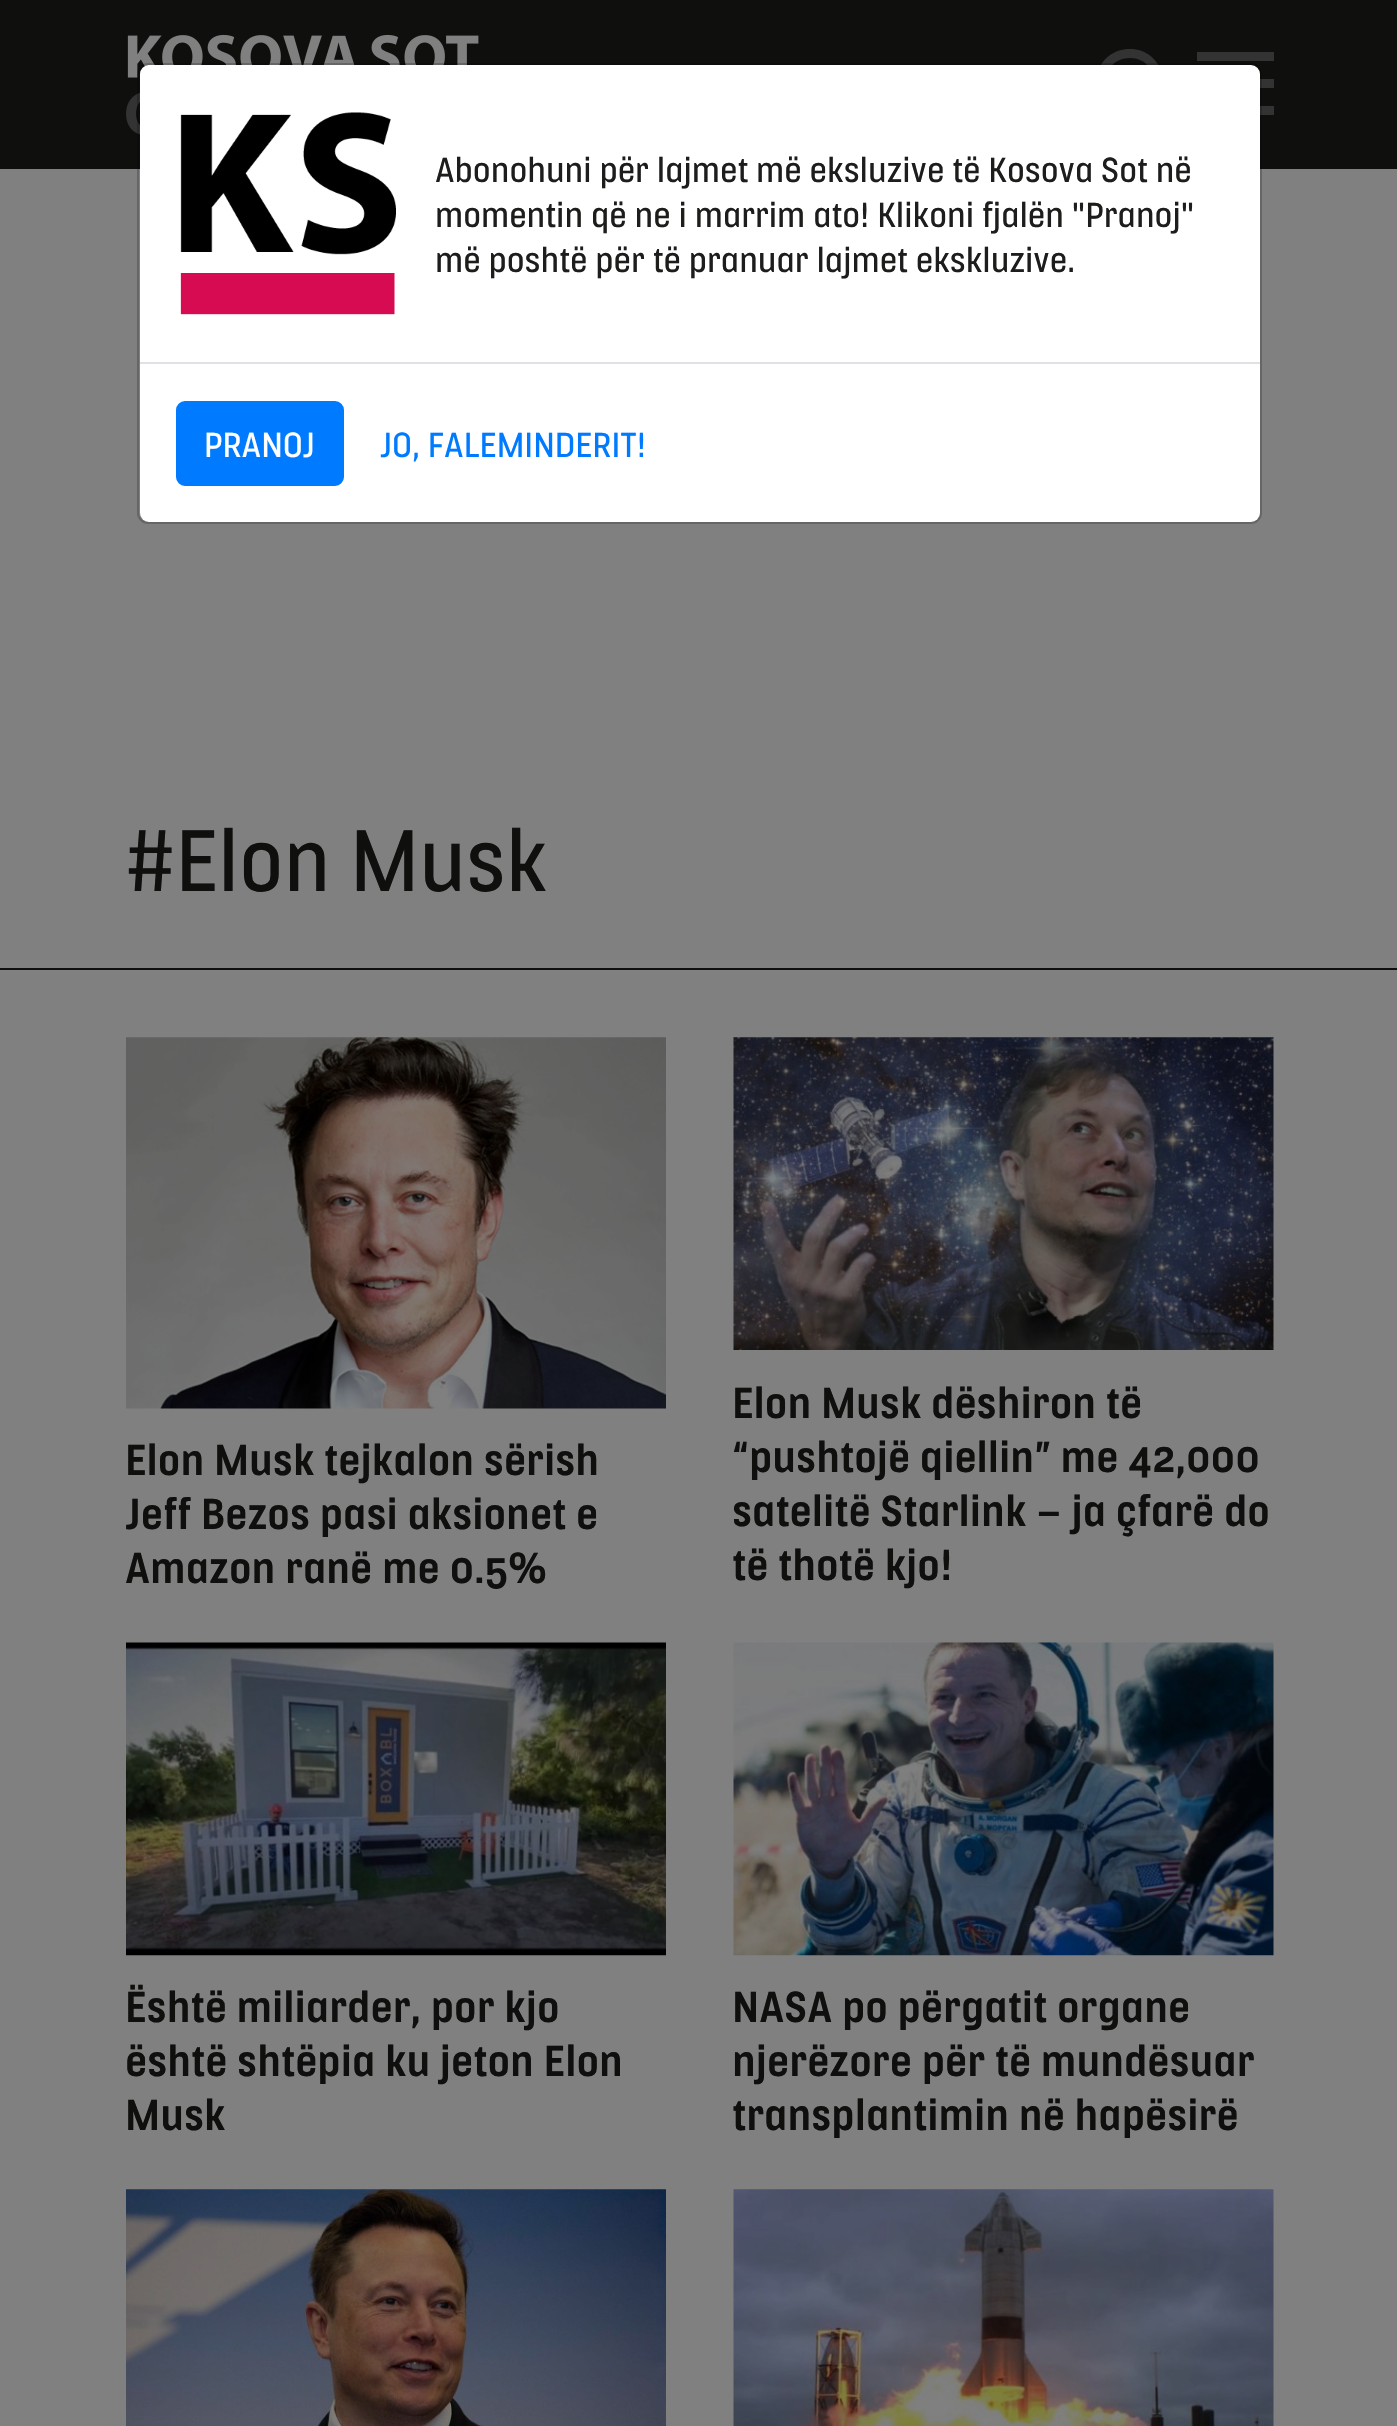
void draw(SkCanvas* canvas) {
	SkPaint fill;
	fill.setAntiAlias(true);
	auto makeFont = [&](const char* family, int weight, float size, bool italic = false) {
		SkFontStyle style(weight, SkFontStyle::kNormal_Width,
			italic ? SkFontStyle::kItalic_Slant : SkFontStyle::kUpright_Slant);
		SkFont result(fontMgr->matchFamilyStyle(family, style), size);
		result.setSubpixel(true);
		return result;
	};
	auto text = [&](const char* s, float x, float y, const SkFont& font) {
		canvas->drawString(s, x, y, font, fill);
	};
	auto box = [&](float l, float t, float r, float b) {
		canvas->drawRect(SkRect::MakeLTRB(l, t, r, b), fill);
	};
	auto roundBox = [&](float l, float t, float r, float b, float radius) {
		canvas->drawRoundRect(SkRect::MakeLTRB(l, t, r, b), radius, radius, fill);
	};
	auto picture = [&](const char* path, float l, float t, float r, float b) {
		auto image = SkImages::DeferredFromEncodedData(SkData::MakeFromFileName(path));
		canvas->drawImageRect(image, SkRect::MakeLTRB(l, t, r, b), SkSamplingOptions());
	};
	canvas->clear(0xFF808080);
	fill.setColor(0xFF0F0F0E);
	box(0, 0, 1397, 169);
	picture("image0.png", 126, 34, 479, 135);
	fill.setColor(0xFF333333);
	canvas->drawPath(SkPathBuilder().moveTo(1130, 58).cubicTo(1162, 58, 1162, 108, 1130, 108).cubicTo(1097, 108, 1097, 58, 1130, 58).close().moveTo(1130, 49).cubicTo(1097, 49, 1083, 91, 1109, 110).cubicTo(1115, 114, 1122, 117, 1130, 117).cubicTo(1137, 117, 1144, 114, 1150, 110).cubicTo(1176, 91, 1162, 49, 1130, 49).close().detach(), fill);
	box(1260, 79, 1274, 88);
	box(1197, 52, 1274, 61);
	box(1260, 106, 1274, 115);
	fill.setColor(0xFFFFFFFF);
	roundBox(140, 65, 1260, 522, 9);
	fill.setStyle(SkPaint::kStroke_Style);
	fill.setStrokeWidth(2);
	fill.setColor(0x33000000);
	canvas->drawRoundRect(SkRect::MakeLTRB(138, 64, 1261, 523), 10, 10, fill);
	picture("image1.png", 180, 112, 396, 315);
	fill.setStyle(SkPaint::kFill_Style);
	fill.setColor(0xFFDEE2E6);
	box(140, 362, 1260, 364);
	fill.setColor(0xFF007BFF);
	canvas->drawRoundRect(SkRect::MakeLTRB(177, 402, 343, 485), 8, 8, fill);
	fill.setStyle(SkPaint::kStroke_Style);
	canvas->drawRoundRect(SkRect::MakeLTRB(177, 402, 343, 485), 8, 8, fill);
	fill.setStyle(SkPaint::kFill_Style);
	fill.setColor(0xFF0F0F0E);
	box(0, 968, 1397, 970);
	picture("image2.png", 126, 1037, 666, 1409);
	picture("image3.png", 733, 1037, 1274, 1350);
	picture("image4.png", 126, 1642, 666, 1956);
	picture("image5.png", 733, 1642, 1274, 1956);
	picture("image6.png", 126, 2189, 666, 2426);
	picture("image7.png", 733, 2189, 1274, 2426);
	auto font1 = makeFont("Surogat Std", 400, 36);
	fill.setColor(0xFF1D1D1B);
	text("Abonohuni për lajmet më eksluzive të Kosova Sot në", 435, 182, font1);
	text("momentin që ne i marrim ato! Klikoni fjalën \"Pranoj\"", 435, 227, font1);
	text("më poshtë për të pranuar lajmet ekskluzive.", 435, 272, font1);
	fill.setColor(0xFFFFFFFF);
	text("PRANOJ", 204, 457, font1);
	fill.setColor(0xFF007BFF);
	text("JO, FALEMINDERIT!", 380, 457, font1);
	auto font2 = makeFont("Surogat Std", 400, 90);
	fill.setColor(0xFF0F0F0E);
	text("#Elon Musk", 125, 891, font2);
	auto font3 = makeFont("Surogat Std", 500, 45);
	text("Elon Musk tejkalon sërish", 125, 1475, font3);
	text("Jeff Bezos pasi aksionet e", 125, 1529, font3);
	text("Amazon ranë me 0.5%", 125, 1583, font3);
	text("Elon Musk dëshiron të", 732, 1418, font3);
	text("“pushtojë qiellin” me 42,000", 732, 1472, font3);
	text("satelitë Starlink – ja çfarë do", 732, 1526, font3);
	text("të thotë kjo!", 732, 1580, font3);
	text("Është miliarder, por kjo", 125, 2022, font3);
	text("është shtëpia ku jeton Elon", 125, 2076, font3);
	text("Musk", 125, 2130, font3);
	text("NASA po përgatit organe", 732, 2022, font3);
	text("njerëzore për të mundësuar", 732, 2076, font3);
	text("transplantimin në hapësirë", 732, 2130, font3);
}
